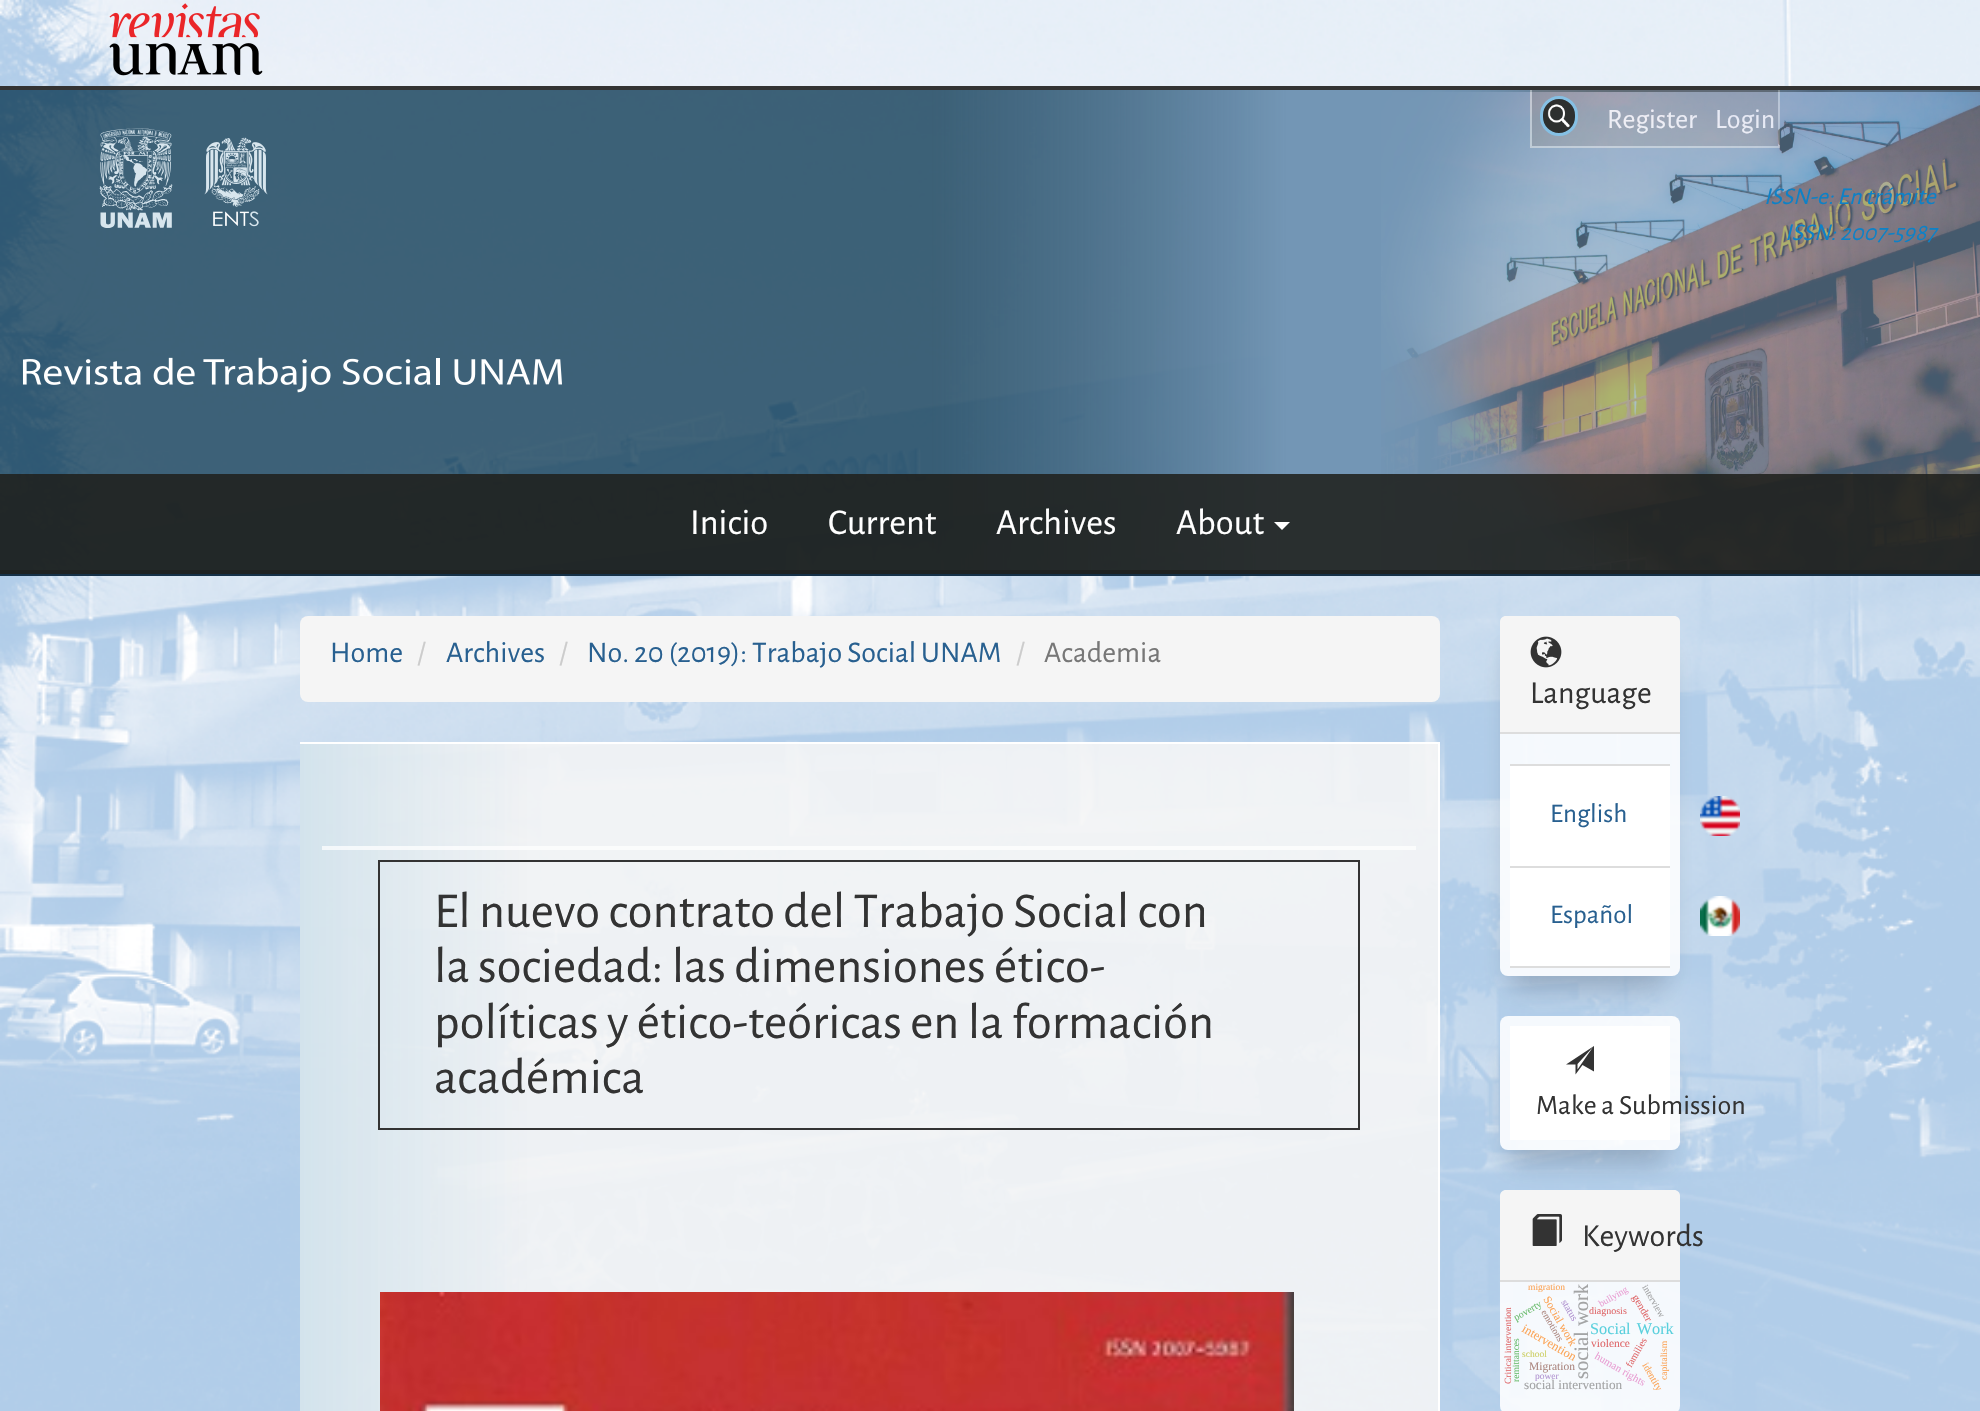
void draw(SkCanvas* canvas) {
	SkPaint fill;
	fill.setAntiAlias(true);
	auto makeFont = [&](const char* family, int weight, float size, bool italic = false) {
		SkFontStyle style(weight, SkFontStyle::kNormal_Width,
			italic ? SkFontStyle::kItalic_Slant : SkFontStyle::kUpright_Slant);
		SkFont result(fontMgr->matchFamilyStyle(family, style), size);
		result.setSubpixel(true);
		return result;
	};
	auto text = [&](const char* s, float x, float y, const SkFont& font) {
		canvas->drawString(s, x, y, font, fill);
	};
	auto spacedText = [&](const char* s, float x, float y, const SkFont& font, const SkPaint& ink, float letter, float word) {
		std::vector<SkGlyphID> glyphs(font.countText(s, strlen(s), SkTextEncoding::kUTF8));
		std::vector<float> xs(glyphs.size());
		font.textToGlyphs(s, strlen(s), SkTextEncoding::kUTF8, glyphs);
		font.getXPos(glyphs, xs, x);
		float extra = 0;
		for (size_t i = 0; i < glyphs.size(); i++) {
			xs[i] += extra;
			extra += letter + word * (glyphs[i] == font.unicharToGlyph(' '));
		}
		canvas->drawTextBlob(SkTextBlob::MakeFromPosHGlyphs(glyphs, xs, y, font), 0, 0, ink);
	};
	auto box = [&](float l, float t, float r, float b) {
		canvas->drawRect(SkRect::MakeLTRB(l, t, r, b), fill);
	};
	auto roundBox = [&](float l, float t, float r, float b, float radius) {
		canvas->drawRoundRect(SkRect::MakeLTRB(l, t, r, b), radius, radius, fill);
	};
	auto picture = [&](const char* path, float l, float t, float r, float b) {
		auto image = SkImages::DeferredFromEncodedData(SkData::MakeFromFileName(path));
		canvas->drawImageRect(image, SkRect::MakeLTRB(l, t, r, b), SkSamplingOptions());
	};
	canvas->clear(0xFFFFFFFF);
	picture("image0.png", 0, 0, 1980, 1411);
	fill.setColor(0xFF333333);
	box(0, 86, 1980, 90);
	picture("image1.png", 109, 3, 263, 76);
	fill.setColor(0xFF153047);
	box(0, 570, 1980, 576);
	fill.setColor(0xFF778897);
	box(1532, 90, 1778, 146);
	fill.setColor(0xFFB7C6CF);
	box(1778, 90, 1780, 148);
	box(1530, 146, 1780, 148);
	box(1530, 90, 1532, 148);
	picture("image4.png", 99, 128, 173, 228);
	picture("image5.png", 204, 137, 268, 227);
	picture("image6.png", 22, 357, 562, 393);
	fill.setColor(0xFFF5F5F5);
	roundBox(300, 616, 1440, 702, 8);
	fill.setColor(0xFFFFFFFF);
	box(300, 742, 1440, 744);
	box(1438, 742, 1440, 1411);
	fill.setColor(0xB8FFFFFF);
	box(322, 846, 1416, 850);
	fill.setStyle(SkPaint::kStroke_Style);
	fill.setStrokeWidth(2);
	fill.setColor(0xFF333333);
	canvas->drawRect(SkRect::MakeLTRB(379, 861, 1359, 1129), fill);
	picture("image7.png", 380, 1292, 1294, 1411);
	canvas->save();
	canvas->clipPath(SkPathBuilder(SkPathFillType::kEvenOdd).moveTo(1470, 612).lineTo(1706, 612).lineTo(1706, 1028).lineTo(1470, 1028).close().moveTo(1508, 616).lineTo(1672, 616).cubicTo(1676.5f, 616, 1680, 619.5f, 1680, 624).lineTo(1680, 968).cubicTo(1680, 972.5f, 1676.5f, 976, 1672, 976).lineTo(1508, 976).cubicTo(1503.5f, 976, 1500, 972.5f, 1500, 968).lineTo(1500, 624).cubicTo(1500, 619.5f, 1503.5f, 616, 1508, 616).close().detach(), true);
	fill.setStyle(SkPaint::kFill_Style);
	fill.setColor(0x330A0C14);
	fill.setMaskFilter(SkMaskFilter::MakeBlur(kNormal_SkBlurStyle, 13));
	canvas->drawRect(SkRect::MakeLTRB(1510, 652, 1666, 988), fill);
	fill.setMaskFilter(nullptr);
	canvas->restore();
	fill.setColor(0xDEFFFFFF);
	roundBox(1500, 616, 1680, 976, 8);
	fill.setColor(0xFFF5F5F5);
	canvas->drawPath(SkPathBuilder().moveTo(1506, 616).lineTo(1674, 616).cubicTo(1677.5f, 616, 1680, 618.5f, 1680, 622).lineTo(1680, 734).lineTo(1500, 734).lineTo(1500, 622).cubicTo(1500, 618.5f, 1502.5f, 616, 1506, 616).close().detach(), fill);
	fill.setColor(0xFFDDDDDD);
	box(1500, 732, 1680, 734);
	picture("image8.png", 1530, 636, 1562, 668);
	fill.setColor(0xFFFFFFFF);
	box(1510, 766, 1670, 866);
	fill.setColor(0xFFDDDDDD);
	box(1510, 764, 1670, 766);
	box(1510, 866, 1670, 868);
	picture("image9.png", 1700, 796, 1740, 836);
	fill.setColor(0xFFFFFFFF);
	box(1510, 868, 1670, 966);
	fill.setColor(0xFFDDDDDD);
	box(1510, 966, 1670, 968);
	picture("image10.png", 1700, 896, 1740, 936);
	canvas->save();
	canvas->clipPath(SkPathBuilder(SkPathFillType::kEvenOdd).moveTo(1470, 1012).lineTo(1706, 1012).lineTo(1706, 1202).lineTo(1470, 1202).close().moveTo(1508, 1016).lineTo(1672, 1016).cubicTo(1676.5f, 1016, 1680, 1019.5f, 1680, 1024).lineTo(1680, 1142).cubicTo(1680, 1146.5f, 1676.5f, 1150, 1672, 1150).lineTo(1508, 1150).cubicTo(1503.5f, 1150, 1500, 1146.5f, 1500, 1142).lineTo(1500, 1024).cubicTo(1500, 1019.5f, 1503.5f, 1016, 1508, 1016).close().detach(), true);
	fill.setColor(0x330A0C14);
	fill.setMaskFilter(SkMaskFilter::MakeBlur(kNormal_SkBlurStyle, 13));
	canvas->drawRect(SkRect::MakeLTRB(1510, 1052, 1666, 1162), fill);
	fill.setMaskFilter(nullptr);
	canvas->restore();
	fill.setColor(0xDEFFFFFF);
	roundBox(1500, 1016, 1680, 1150, 8);
	fill.setColor(0xFFFFFFFF);
	box(1510, 1026, 1670, 1140);
	fill.setColor(0xFF333333);
	canvas->drawPath(SkPathBuilder().moveTo(1594, 1071.5f).lineTo(1582.5f, 1065).lineTo(1575.5f, 1074.5f).lineTo(1575.5f, 1064.5f).lineTo(1566, 1064.5f).lineTo(1594, 1046).close().moveTo(1577.5f, 1064).lineTo(1577.5f, 1069.5f).lineTo(1593, 1047).close().detach(), fill);
	fill.setColor(0xDEFFFFFF);
	roundBox(1500, 1190, 1680, 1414, 8);
	fill.setColor(0xFFF5F5F5);
	canvas->drawPath(SkPathBuilder().moveTo(1506, 1190).lineTo(1674, 1190).cubicTo(1677.5f, 1190, 1680, 1192.5f, 1680, 1196).lineTo(1680, 1282).lineTo(1500, 1282).lineTo(1500, 1196).cubicTo(1500, 1192.5f, 1502.5f, 1190, 1506, 1190).close().detach(), fill);
	fill.setColor(0xFFDDDDDD);
	box(1500, 1280, 1680, 1282);
	picture("image11.png", 1532, 1214, 1562, 1246);
	auto font1 = makeFont("Alegreya Sans", 400, 28);
	fill.setColor(0xFFFFFFFF);
	text("Register", 1607, 128, font1);
	text("Login", 1715, 128, font1);
	picture("image2.png", 1381, 90, 1980, 570);
	fill.setColor(0xE01F201C);
	canvas->drawRoundRect(SkRect::MakeLTRB(1541.5f, 97.5f, 1576.5f, 134.5f), 17.5f, 17.5f, fill);
	fill.setStyle(SkPaint::kStroke_Style);
	fill.setStrokeWidth(3);
	fill.setColor(0xFF85C0E4);
	canvas->drawRoundRect(SkRect::MakeLTRB(1541.5f, 97.5f, 1576.5f, 134.5f), 17.5f, 17.5f, fill);
	picture("image3.png", 1547, 104, 1570, 128);
	auto font2 = makeFont("Alegreya Sans", 400, 24, true);
	fill.setStyle(SkPaint::kFill_Style);
	fill.setColor(0xFF0E81C6);
	text("ISSN-e: En trámite", 1764, 204, font2);
	text("ISSN: 2007-5987", 1785, 240, font2);
	fill.setColor(0xE01F201C);
	box(0, 474, 1980, 574);
	auto font3 = makeFont("Alegreya Sans", 400, 36.5f);
	fill.setColor(0xFFFFFFFF);
	text("Inicio", 690, 534, font3);
	text("Current", 828, 534, font3);
	text("Archives", 996, 534, font3);
	text("About", 1176, 534, font3);
	canvas->drawPath(SkPathBuilder().moveTo(1274, 522).lineTo(1290, 522).lineTo(1282, 530).close().detach(), fill);
	auto font4 = makeFont("Alegreya Sans", 400, 30);
	fill.setColor(0xFF286090);
	text("Home", 330, 662, font4);
	fill.setColor(0xFFCCCCCC);
	text("/", 417, 662, font4);
	fill.setColor(0xFF286090);
	text("Archives", 446, 662, font4);
	fill.setColor(0xFFCCCCCC);
	text("/", 559, 662, font4);
	fill.setColor(0xFF286090);
	text("No. 20 (2019): Trabajo Social UNAM", 587, 662, font4);
	fill.setColor(0xFFCCCCCC);
	text("/", 1016, 662, font4);
	fill.setColor(0xFF777777);
	text("Academia", 1044, 662, font4);
	auto font5 = makeFont("Alegreya Sans", 400, 50.4f);
	fill.setColor(0xFF333333);
	text("El nuevo contrato del Trabajo Social con", 434, 927, font5);
	text("la sociedad: las dimensiones ético-", 434, 982, font5);
	text("políticas y ético-teóricas en la formación", 434, 1038, font5);
	text("académica", 434, 1093, font5);
	auto font6 = makeFont("Alegreya Sans", 400, 32);
	text("Language", 1530, 703, font6);
	auto font7 = makeFont("Alegreya Sans", 400, 27);
	fill.setColor(0xFF286090);
	text("English", 1550, 822, font7);
	text("Español", 1550, 923, font7);
	fill.setColor(0xFF333333);
	text("Make a Submission", 1536, 1114, font1);
	text("Keywords", 1582, 1246, font6);
	auto font8 = makeFont("Liberation Serif", 400, 9.5f);
	fill.setColor(0xFFFCA456);
	text("migration", 1528, 1290, font8);
	auto font9 = makeFont("Liberation Serif", 400, 20.5f);
	fill.setColor(0xFFA3A4A5);
	canvas->save();
	canvas->rotate(-90, 1588, 1379);
	text("social work", 1588, 1379, font9);
	canvas->restore();
	fill.setColor(0xFFE99ED3);
	canvas->save();
	canvas->rotate(-30, 1601, 1307);
	text("bullying", 1601, 1307, font8);
	canvas->restore();
	auto font10 = makeFont("Liberation Serif", 400, 10.75f);
	fill.setColor(0xFFDF6668);
	canvas->save();
	canvas->rotate(60, 1632, 1297);
	text("gender", 1632, 1297, font10);
	canvas->restore();
	fill.setColor(0xFFA3A4A5);
	canvas->save();
	canvas->rotate(60, 1642, 1287);
	text("interview", 1642, 1287, font8);
	canvas->restore();
	fill.setColor(0xFFDF6668);
	canvas->save();
	canvas->rotate(-90, 1511, 1384);
	text("Critical intervention", 1511, 1384, font8);
	canvas->restore();
	auto font11 = makeFont("Liberation Serif", 400, 10);
	fill.setColor(0xFF68BB6A);
	canvas->save();
	canvas->rotate(-30, 1516, 1321);
	text("poverty", 1516, 1321, font11);
	canvas->restore();
	fill.setColor(0xFFDF6668);
	text("diagnosis", 1589, 1314, font11);
	auto font12 = makeFont("Liberation Serif", 400, 12.5f);
	fill.setColor(0xFFFCA456);
	canvas->save();
	canvas->rotate(30, 1521, 1331);
	text("intervention", 1521, 1331, font12);
	canvas->restore();
	auto font13 = makeFont("Liberation Serif", 400, 11.5f);
	canvas->save();
	canvas->rotate(60, 1543, 1299);
	text("Social work", 1543, 1299, font13);
	canvas->restore();
	fill.setColor(0xFFB193D0);
	canvas->save();
	canvas->rotate(60, 1561, 1302);
	text("status", 1561, 1302, font11);
	canvas->restore();
	fill.setColor(0xFFAC8780);
	canvas->save();
	canvas->rotate(60, 1541, 1312);
	text("emotions", 1541, 1312, font8);
	canvas->restore();
	auto font14 = makeFont("Liberation Serif", 400, 16.25f);
	fill.setColor(0xFF5AD0DD);
	spacedText("Social Work", 1590, 1334, font14, fill, 0, 2);
	fill.setColor(0xFF68BB6A);
	canvas->save();
	canvas->rotate(-90, 1519, 1382);
	text("remittances", 1519, 1382, font8);
	canvas->restore();
	fill.setColor(0xFFCDCF64);
	text("school", 1522, 1357, font8);
	fill.setColor(0xFFDF6668);
	text("violence", 1591, 1347, font13);
	fill.setColor(0xFFAC8780);
	text("Migration", 1529, 1370, font13);
	fill.setColor(0xFFB193D0);
	text("power", 1535, 1379, font8);
	auto font15 = makeFont("Liberation Serif", 400, 13.25f);
	fill.setColor(0xFFA3A4A5);
	text("social intervention", 1524, 1389, font15);
	fill.setColor(0xFFE99ED3);
	canvas->save();
	canvas->rotate(30, 1594, 1358);
	text("human rights", 1594, 1358, font10);
	canvas->restore();
	fill.setColor(0xFFFCA456);
	canvas->save();
	canvas->rotate(60, 1642, 1365);
	text("identity", 1642, 1365, font11);
	canvas->restore();
	canvas->save();
	canvas->rotate(-90, 1667, 1380);
	text("capitalism", 1667, 1380, font8);
	canvas->restore();
	fill.setColor(0xFFDF6668);
	canvas->save();
	canvas->rotate(-60, 1631, 1368);
	text("families", 1631, 1368, font11);
	canvas->restore();
}
